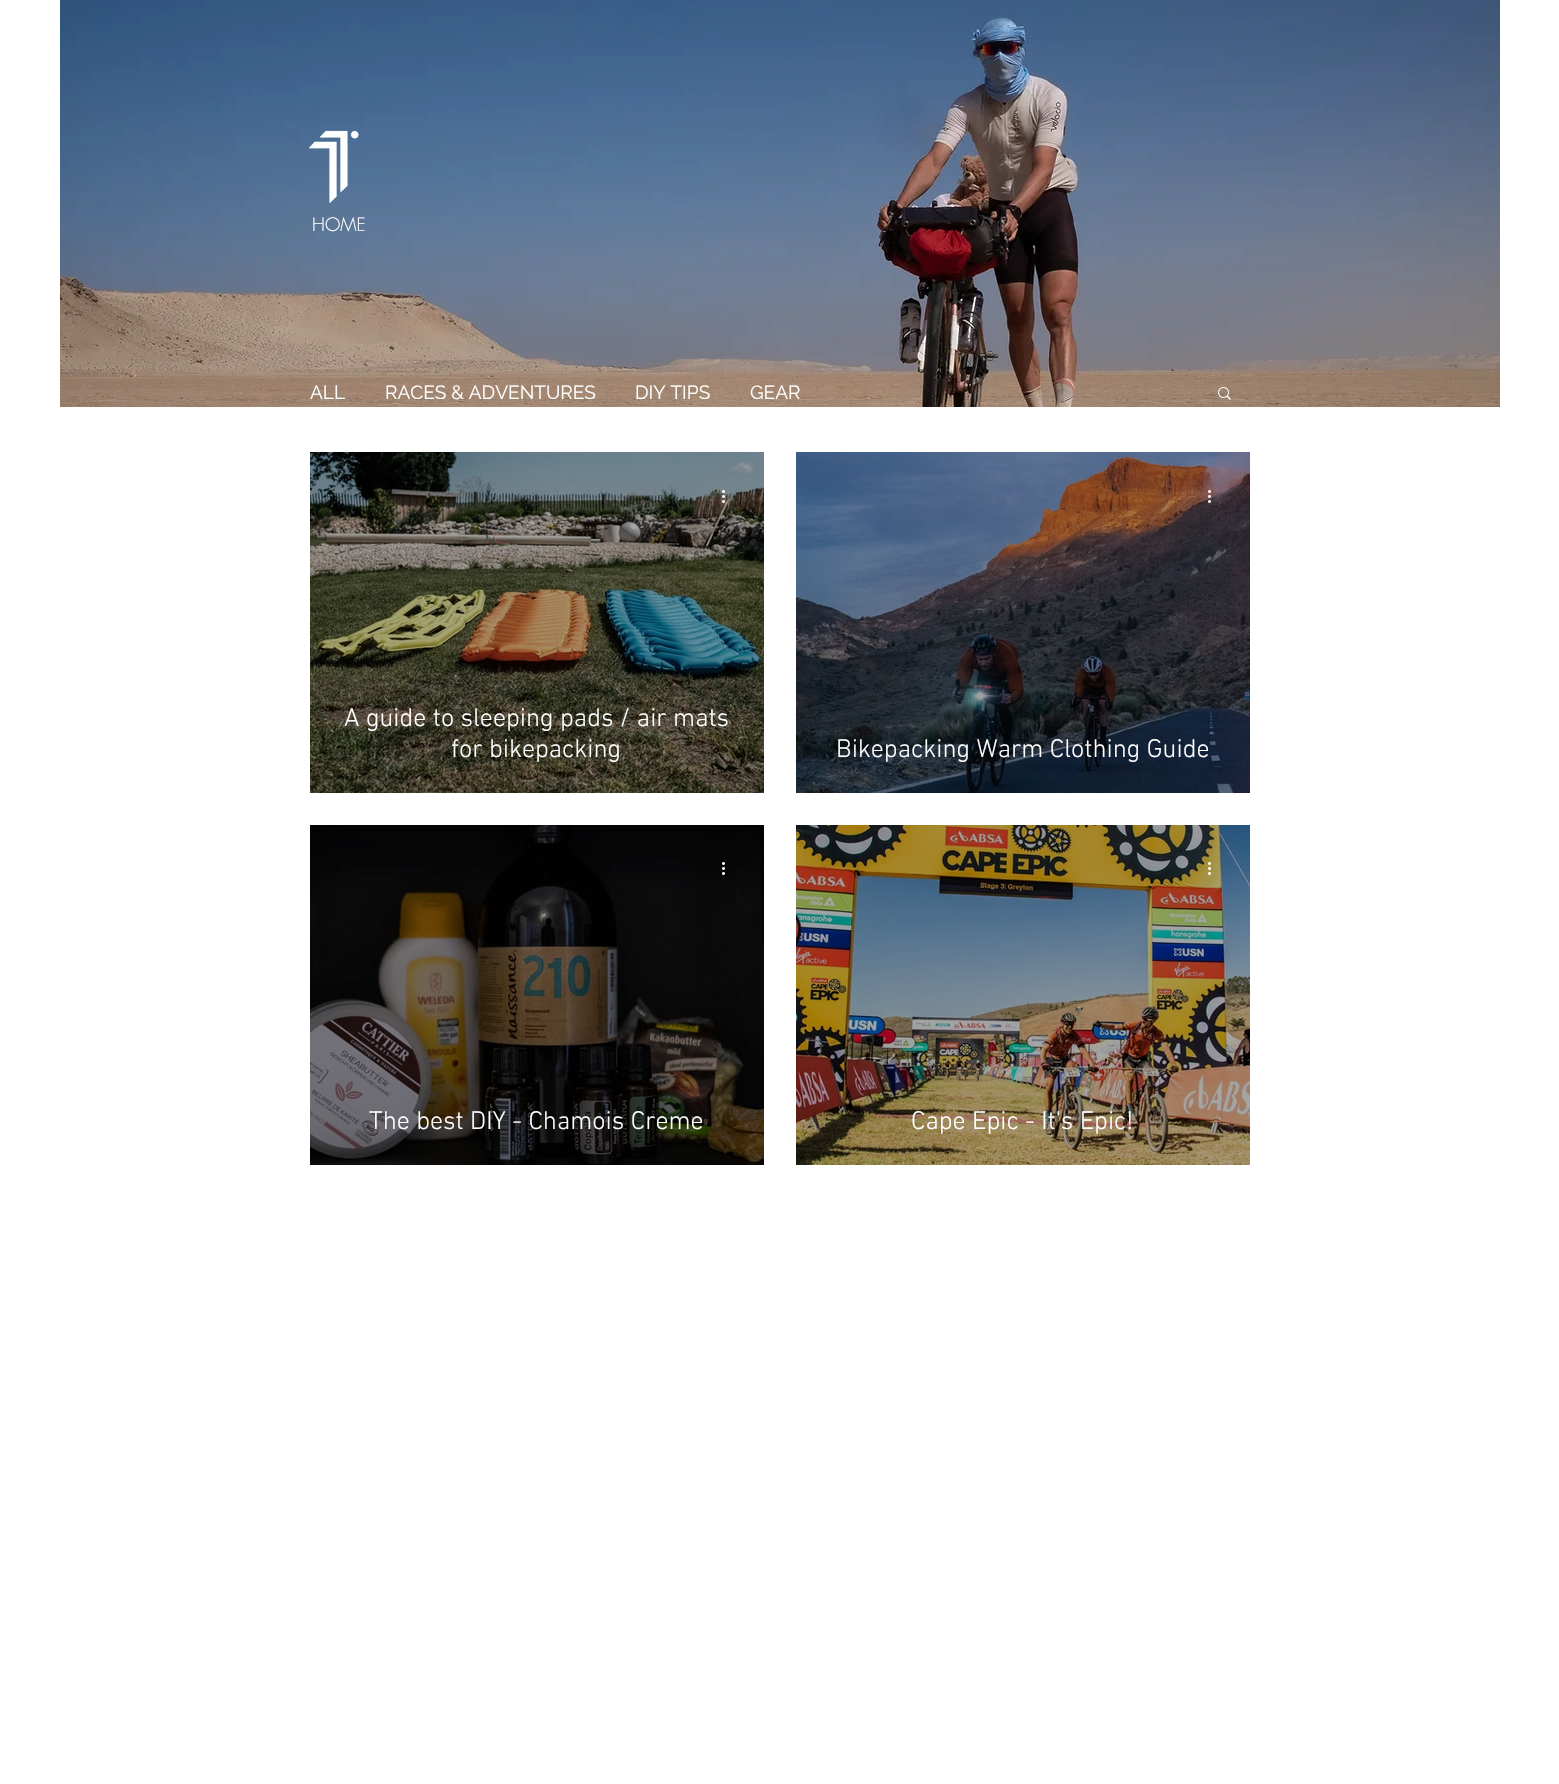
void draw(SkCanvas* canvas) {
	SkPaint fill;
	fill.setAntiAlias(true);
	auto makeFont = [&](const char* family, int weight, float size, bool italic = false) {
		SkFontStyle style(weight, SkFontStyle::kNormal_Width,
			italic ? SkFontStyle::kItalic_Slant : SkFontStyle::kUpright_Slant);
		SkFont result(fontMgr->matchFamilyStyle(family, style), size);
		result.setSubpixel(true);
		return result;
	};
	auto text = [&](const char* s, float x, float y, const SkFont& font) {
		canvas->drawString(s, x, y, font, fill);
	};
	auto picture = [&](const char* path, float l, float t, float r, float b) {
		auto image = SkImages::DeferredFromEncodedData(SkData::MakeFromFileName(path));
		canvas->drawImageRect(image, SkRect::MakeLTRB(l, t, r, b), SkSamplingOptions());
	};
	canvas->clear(0xFFFFFFFF);
	picture("image0.png", 60, 0, 1500, 407);
	picture("image1.png", 309, 130, 359, 203);
	picture("image2.png", 1218, 387, 1231, 400);
	picture("image3.png", 310, 452, 764, 793);
	picture("image4.png", 722, 490, 725, 503);
	picture("image5.png", 796, 452, 1250, 793);
	picture("image6.png", 1208, 490, 1211, 503);
	picture("image7.png", 310, 825, 764, 1165);
	picture("image8.png", 722, 862, 725, 875);
	picture("image9.png", 796, 825, 1250, 1165);
	picture("image10.png", 1208, 862, 1211, 875);
	auto font1 = makeFont("futura", 300, 18);
	fill.setColor(0xFFFFFFFF);
	text("HOME", 312, 231, font1);
	auto font2 = makeFont("Raleway", 400, 19);
	text("ALL", 310, 399, font2);
	text("RACES & ADVENTURES", 385, 399, font2);
	text("DIY TIPS", 635, 399, font2);
	text("GEAR", 750, 399, font2);
	auto font3 = makeFont("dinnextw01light", 300, 26);
	text("A guide to sleeping pads / air mats", 344, 726, font3);
	text("for bikepacking", 451, 757, font3);
	text("Bikepacking Warm Clothing Guide", 836, 757, font3);
	text("The best DIY - Chamois Creme", 369, 1129, font3);
	text("Cape Epic - It's Epic!", 911, 1129, font3);
}
